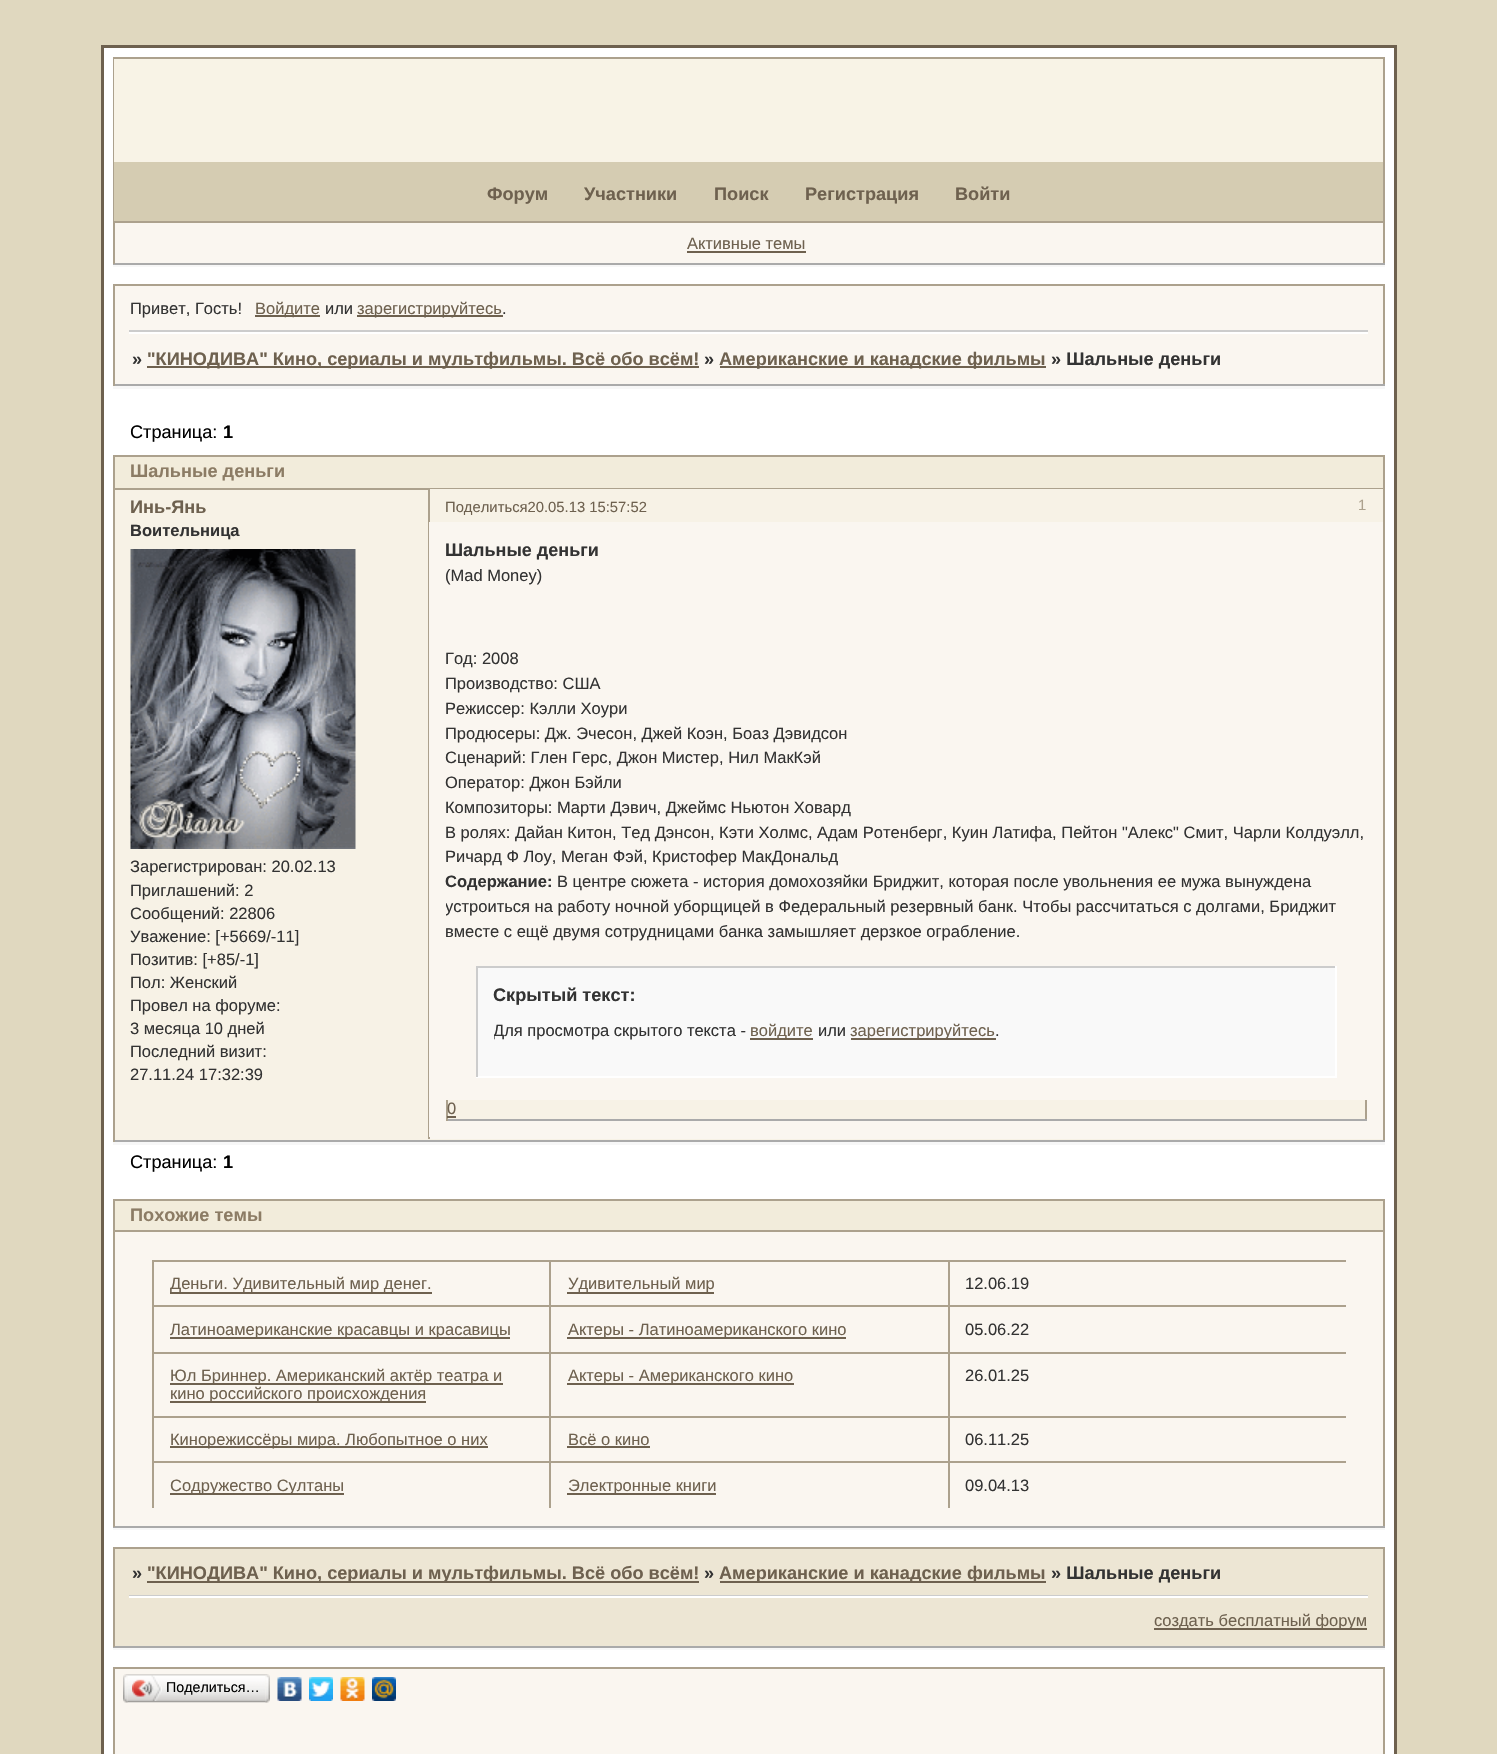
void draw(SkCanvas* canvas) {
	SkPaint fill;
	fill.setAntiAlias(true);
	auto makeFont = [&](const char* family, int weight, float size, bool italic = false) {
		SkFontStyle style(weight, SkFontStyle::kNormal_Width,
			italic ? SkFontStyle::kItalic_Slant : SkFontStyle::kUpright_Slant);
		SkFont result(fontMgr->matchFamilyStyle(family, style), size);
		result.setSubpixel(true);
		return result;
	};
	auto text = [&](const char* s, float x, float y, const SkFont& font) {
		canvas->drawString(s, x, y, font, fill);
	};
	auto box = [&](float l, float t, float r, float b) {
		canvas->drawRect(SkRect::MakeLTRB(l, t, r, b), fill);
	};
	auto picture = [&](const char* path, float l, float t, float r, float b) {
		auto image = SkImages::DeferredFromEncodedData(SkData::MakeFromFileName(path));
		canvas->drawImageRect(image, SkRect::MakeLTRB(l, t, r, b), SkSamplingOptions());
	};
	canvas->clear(0xFFE0D8BF);
	fill.setColor(0xFFFFFFFF);
	canvas->drawRect(SkRect::MakeLTRB(102.5f, 46.5f, 1395.5f, 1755.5f), fill);
	fill.setStyle(SkPaint::kStroke_Style);
	fill.setStrokeWidth(3);
	fill.setColor(0xFF6E614F);
	canvas->drawRect(SkRect::MakeLTRB(102.5f, 46.5f, 1395.5f, 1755.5f), fill);
	fill.setStyle(SkPaint::kFill_Style);
	fill.setColor(0xFFACA18D);
	box(113, 57, 1385, 59);
	box(1383, 57, 1385, 221);
	box(113, 57, 115, 162);
	fill.setColor(0xFFF8F3E6);
	box(114, 59, 1383, 162);
	fill.setColor(0xFFACA18D);
	box(113, 162, 114, 221);
	fill.setColor(0xFFD5CCB2);
	box(114, 162, 1383, 221);
	fill.setColor(0xFFF7F7F7);
	box(113, 265, 1385, 267);
	fill.setColor(0xFFFAF6F0);
	box(115, 223, 1383, 263);
	fill.setColor(0xFFACA18D);
	box(113, 221, 1385, 223);
	box(1383, 221, 1385, 264);
	fill.setColor(0xFFAAAAAA);
	box(113, 263, 1385, 265);
	fill.setColor(0xFFACA18D);
	box(113, 221, 115, 264);
	fill.setColor(0xFF6E614F);
	box(687, 251, 806, 253);
	fill.setColor(0xFFFAF6F0);
	box(115, 286, 1383, 384);
	fill.setColor(0xFFACA18D);
	box(113, 284, 1385, 286);
	box(1383, 284, 1385, 386);
	box(113, 284, 115, 333);
	fill.setColor(0xFF6E614F);
	box(255, 315, 320, 317);
	box(357, 315, 503, 317);
	fill.setColor(0xFFCCCCCC);
	box(129, 330, 1368, 332);
	fill.setColor(0xFFFFFFFF);
	box(129, 332, 1368, 334);
	fill.setColor(0xFFF7F7F7);
	box(113, 386, 1385, 389);
	fill.setColor(0xFFAAAAAA);
	box(113, 384, 1385, 386);
	fill.setColor(0xFFACA18D);
	box(113, 330, 115, 386);
	fill.setColor(0xFF6E614F);
	box(147, 366, 699, 368);
	box(720, 366, 1046, 368);
	fill.setColor(0xFFF2ECDB);
	box(115, 457, 1383, 488);
	fill.setColor(0xFFACA18D);
	box(113, 455, 1385, 457);
	box(1383, 455, 1385, 488);
	box(113, 455, 115, 488);
	fill.setColor(0xFFF7F7F7);
	box(113, 1142, 1385, 1145);
	fill.setColor(0xFFF7F2E6);
	box(115, 490, 428, 522);
	fill.setColor(0xFFACA18D);
	box(113, 488, 1385, 490);
	box(1383, 488, 1385, 1142);
	box(113, 488, 115, 524);
	fill.setColor(0xFFF7F2E6);
	box(430, 489, 1383, 522);
	fill.setColor(0xFFACA18D);
	box(428, 489, 430, 524);
	fill.setColor(0xFFF7F2E6);
	box(115, 522, 1383, 1140);
	fill.setColor(0xFFAAAAAA);
	box(113, 1140, 1385, 1142);
	fill.setColor(0xFFACA18D);
	box(113, 522, 115, 1142);
	picture("image0.png", 130, 549, 356, 849);
	fill.setColor(0xFFFAF6F0);
	box(430, 1137, 1383, 1139);
	fill.setColor(0xFFACA18D);
	box(428, 522, 430, 1139);
	fill.setColor(0xFFFAF6F0);
	box(429, 522, 1383, 1137);
	fill.setColor(0xFFF9F9F9);
	box(478, 968, 1335, 1076);
	fill.setColor(0xFFCCCCCC);
	box(476, 966, 1337, 968);
	fill.setColor(0xFFFFFFFF);
	box(1335, 966, 1337, 1077);
	box(476, 1076, 1337, 1078);
	fill.setColor(0xFFCCCCCC);
	box(476, 966, 478, 1077);
	fill.setColor(0xFF6E614F);
	box(750, 1038, 813, 1040);
	box(851, 1038, 996, 1040);
	fill.setColor(0xFFF7F2E6);
	box(448, 1100, 1365, 1119);
	fill.setColor(0xFFACA18D);
	box(1365, 1100, 1367, 1121);
	fill.setColor(0xFFAAAAAA);
	box(446, 1119, 1367, 1121);
	fill.setColor(0xFFACA18D);
	box(446, 1100, 448, 1121);
	fill.setColor(0xFF6E614F);
	box(447, 1116, 456, 1118);
	fill.setColor(0xFFF7F7F7);
	box(113, 1528, 1385, 1530);
	fill.setColor(0xFFF2ECDB);
	box(115, 1201, 1383, 1230);
	fill.setColor(0xFFACA18D);
	box(113, 1199, 1385, 1201);
	box(1383, 1199, 1385, 1230);
	box(113, 1199, 115, 1230);
	fill.setColor(0xFFFAF6F0);
	box(115, 1232, 1383, 1526);
	fill.setColor(0xFFACA18D);
	box(113, 1230, 1385, 1232);
	box(1383, 1230, 1385, 1527);
	fill.setColor(0xFFAAAAAA);
	box(113, 1526, 1385, 1528);
	fill.setColor(0xFFACA18D);
	box(113, 1230, 115, 1527);
	box(152, 1260, 1346, 1262);
	box(152, 1260, 154, 1305);
	fill.setColor(0xFF6E614F);
	box(170, 1292, 432, 1294);
	fill.setColor(0xFFACA18D);
	box(549, 1260, 551, 1305);
	fill.setColor(0xFF6E614F);
	box(567, 1292, 714, 1294);
	fill.setColor(0xFFACA18D);
	box(948, 1260, 950, 1305);
	box(152, 1305, 1346, 1307);
	box(152, 1305, 154, 1352);
	fill.setColor(0xFF6E614F);
	box(170, 1337, 510, 1339);
	fill.setColor(0xFFACA18D);
	box(549, 1305, 551, 1352);
	fill.setColor(0xFF6E614F);
	box(567, 1337, 846, 1339);
	fill.setColor(0xFFACA18D);
	box(948, 1305, 950, 1352);
	box(152, 1352, 1346, 1354);
	box(152, 1352, 154, 1416);
	fill.setColor(0xFF6E614F);
	box(170, 1383, 503, 1385);
	box(170, 1401, 426, 1403);
	fill.setColor(0xFFACA18D);
	box(549, 1352, 551, 1416);
	fill.setColor(0xFF6E614F);
	box(567, 1383, 794, 1385);
	fill.setColor(0xFFACA18D);
	box(948, 1352, 950, 1416);
	box(152, 1416, 1346, 1418);
	box(152, 1416, 154, 1461);
	fill.setColor(0xFF6E614F);
	box(170, 1446, 488, 1448);
	fill.setColor(0xFFACA18D);
	box(549, 1416, 551, 1461);
	fill.setColor(0xFF6E614F);
	box(567, 1446, 650, 1448);
	fill.setColor(0xFFACA18D);
	box(948, 1416, 950, 1461);
	box(152, 1461, 1346, 1463);
	box(152, 1461, 154, 1508);
	fill.setColor(0xFF6E614F);
	box(170, 1493, 344, 1495);
	fill.setColor(0xFFACA18D);
	box(549, 1461, 551, 1508);
	fill.setColor(0xFF6E614F);
	box(567, 1493, 716, 1495);
	fill.setColor(0xFFACA18D);
	box(948, 1461, 950, 1508);
	box(113, 1547, 1385, 1549);
	box(1383, 1595, 1385, 1647);
	box(1383, 1547, 1385, 1598);
	fill.setColor(0xFFAAAAAA);
	box(113, 1646, 1385, 1648);
	fill.setColor(0xFFACA18D);
	box(113, 1595, 115, 1647);
	box(113, 1547, 115, 1598);
	fill.setColor(0xFFEDE6D4);
	box(115, 1549, 1383, 1646);
	fill.setColor(0xFF6E614F);
	box(147, 1581, 699, 1583);
	box(720, 1581, 1046, 1583);
	fill.setColor(0xFFCCCCCC);
	box(129, 1595, 1368, 1596);
	fill.setColor(0xFFFFFFFF);
	box(129, 1596, 1368, 1598);
	fill.setColor(0xFFF7F7F7);
	box(113, 1648, 1385, 1650);
	fill.setColor(0xFF6E614F);
	box(1154, 1628, 1367, 1630);
	fill.setColor(0xFFFAF6F0);
	box(115, 1669, 1383, 1754);
	fill.setColor(0xFFACA18D);
	box(113, 1667, 1385, 1669);
	box(1383, 1667, 1385, 1754);
	box(113, 1667, 115, 1754);
	picture("image1.png", 127, 1674, 266, 1703);
	picture("image2.png", 123, 1674, 128, 1703);
	picture("image3.png", 132, 1675, 162, 1701);
	picture("image4.png", 265, 1674, 270, 1703);
	picture("image5.png", 277, 1677, 302, 1701);
	picture("image6.png", 309, 1677, 333, 1701);
	picture("image7.png", 340, 1677, 365, 1701);
	picture("image8.png", 372, 1677, 396, 1701);
	auto font1 = makeFont("Liberation Sans", 700, 18.15f);
	fill.setColor(0xFF6E614F);
	text("Форум", 487, 200, font1);
	text("Участники", 584, 200, font1);
	text("Поиск", 714, 200, font1);
	text("Регистрация", 805, 200, font1);
	text("Войти", 955, 200, font1);
	auto font2 = makeFont("Liberation Sans", 400, 16.5f);
	text("Активные темы", 687, 249, font2);
	fill.setColor(0xFF333333);
	text("Привет, Гость!", 130, 314, font2);
	fill.setColor(0xFF6E614F);
	text("Войдите", 255, 314, font2);
	fill.setColor(0xFF333333);
	text("или", 325, 314, font2);
	fill.setColor(0xFF6E614F);
	text("зарегистрируйтесь", 357, 314, font2);
	fill.setColor(0xFF333333);
	text(".", 502, 314, font2);
	text("»", 132, 365, font1);
	fill.setColor(0xFF6E614F);
	text("\"КИНОДИВА\" Кино, сериалы и мультфильмы. Всё обо всём!", 147, 365, font1);
	fill.setColor(0xFF333333);
	text("»", 704, 365, font1);
	fill.setColor(0xFF6E614F);
	text("Американские и канадские фильмы", 719, 365, font1);
	fill.setColor(0xFF333333);
	text("» Шальные деньги", 1051, 365, font1);
	auto font3 = makeFont("Liberation Sans", 400, 18.15f);
	fill.setColor(0xFF000000);
	text("Страница:", 130, 438, font3);
	text("1", 223, 438, font1);
	fill.setColor(0xFF8C7C65);
	text("Шальные деньги", 130, 477, font1);
	auto font4 = makeFont("Liberation Sans", 400, 14.8f);
	fill.setColor(0xFF6E614F);
	text("Поделиться20.05.13 15:57:52", 445, 512, font4);
	fill.setColor(0xFFACA18D);
	text("1", 1358, 510, font4);
	fill.setColor(0xFF6E614F);
	text("Инь-Янь", 130, 513, font1);
	auto font5 = makeFont("Liberation Sans", 700, 16.5f);
	fill.setColor(0xFF333333);
	text("Воительница", 130, 536, font5);
	text("Зарегистрирован: 20.02.13", 130, 872, font2);
	text("Приглашений: 2", 130, 896, font2);
	text("Сообщений: 22806", 130, 919, font2);
	text("Уважение: [+5669/-11]", 130, 942, font2);
	text("Позитив: [+85/-1]", 130, 965, font2);
	text("Пол: Женский", 130, 988, font2);
	text("Провел на форуме:", 130, 1011, font2);
	text("3 месяца 10 дней", 130, 1034, font2);
	text("Последний визит:", 130, 1057, font2);
	text("27.11.24 17:32:39", 130, 1080, font2);
	auto font6 = makeFont("Liberation Sans", 700, 18);
	text("Шальные деньги", 445, 556, font6);
	text("(Mad Money)", 445, 581, font2);
	text("Год: 2008", 445, 664, font2);
	text("Производство: США", 445, 689, font2);
	text("Режиссер: Кэлли Хоури", 445, 714, font2);
	text("Продюсеры: Дж. Эчесон, Джей Коэн, Боаз Дэвидсон", 445, 739, font2);
	text("Сценарий: Глен Герс, Джон Мистер, Нил МакКэй", 445, 763, font2);
	text("Оператор: Джон Бэйли", 445, 788, font2);
	text("Композиторы: Марти Дэвич, Джеймс Ньютон Ховард", 445, 813, font2);
	text("В ролях: Дайан Китон, Тед Дэнсон, Кэти Холмс, Адам Ротенберг, Куин Латифа, Пейтон \"Алекс\" Смит, Чарли Колдуэлл,", 445, 838, font2);
	text("Ричард Ф Лоу, Меган Фэй, Кристофер МакДональд", 445, 862, font2);
	text("Содержание:", 445, 887, font5);
	text("В центре сюжета - история домохозяйки Бриджит, которая после увольнения ее мужа вынуждена", 557, 887, font2);
	canvas->save();
	canvas->clipRect(SkRect::MakeLTRB(446, 539, 1367, 1101));
	text("устроиться на работу ночной уборщицей в Федеральный резервный банк. Чтобы рассчитаться с долгами, Бриджит", 445, 912, font2);
	canvas->restore();
	text("вместе с ещё двумя сотрудницами банка замышляет дерзкое ограбление.", 445, 937, font2);
	text("Скрытый текст:", 493, 1001, font1);
	canvas->save();
	canvas->clipRect(SkRect::MakeLTRB(494, 1019, 1319, 1059));
	text("Для просмотра скрытого текста -", 493, 1036, font2);
	canvas->restore();
	fill.setColor(0xFF6E614F);
	text("войдите", 750, 1036, font2);
	fill.setColor(0xFF333333);
	text("или", 818, 1036, font2);
	fill.setColor(0xFF6E614F);
	text("зарегистрируйтесь", 850, 1036, font2);
	fill.setColor(0xFF333333);
	text(".", 995, 1036, font2);
	fill.setColor(0xFF6E614F);
	text("0", 447, 1114, font2);
	fill.setColor(0xFF000000);
	text("Страница:", 130, 1168, font3);
	text("1", 223, 1168, font1);
	fill.setColor(0xFF8C7C65);
	text("Похожие темы", 130, 1221, font1);
	fill.setColor(0xFF6E614F);
	text("Деньги. Удивительный мир денег.", 170, 1289, font2);
	text("Удивительный мир", 568, 1289, font2);
	fill.setColor(0xFF333333);
	text("12.06.19", 965, 1289, font2);
	fill.setColor(0xFF6E614F);
	text("Латиноамериканские красавцы и красавицы", 170, 1335, font2);
	text("Актеры - Латиноамериканского кино", 568, 1335, font2);
	fill.setColor(0xFF333333);
	text("05.06.22", 965, 1335, font2);
	fill.setColor(0xFF6E614F);
	text("Юл Бриннер. Американский актёр театра и", 170, 1381, font2);
	text("кино российского происхождения", 170, 1399, font2);
	text("Актеры - Американского кино", 568, 1381, font2);
	fill.setColor(0xFF333333);
	text("26.01.25", 965, 1381, font2);
	fill.setColor(0xFF6E614F);
	text("Кинорежиссёры мира. Любопытное о них", 170, 1445, font2);
	text("Всё о кино", 568, 1445, font2);
	fill.setColor(0xFF333333);
	text("06.11.25", 965, 1445, font2);
	fill.setColor(0xFF6E614F);
	text("Содружество Султаны", 170, 1491, font2);
	text("Электронные книги", 568, 1491, font2);
	fill.setColor(0xFF333333);
	text("09.04.13", 965, 1491, font2);
	text("»", 132, 1579, font1);
	fill.setColor(0xFF6E614F);
	text("\"КИНОДИВА\" Кино, сериалы и мультфильмы. Всё обо всём!", 147, 1579, font1);
	fill.setColor(0xFF333333);
	text("»", 704, 1579, font1);
	fill.setColor(0xFF6E614F);
	text("Американские и канадские фильмы", 719, 1579, font1);
	fill.setColor(0xFF333333);
	text("» Шальные деньги", 1051, 1579, font1);
	fill.setColor(0xFF6E614F);
	text("создать бесплатный форум", 1154, 1626, font2);
	auto font7 = makeFont("Liberation Sans", 400, 14.25f);
	fill.setColor(0xFF000000);
	text("Поделиться…", 166, 1692, font7);
}
